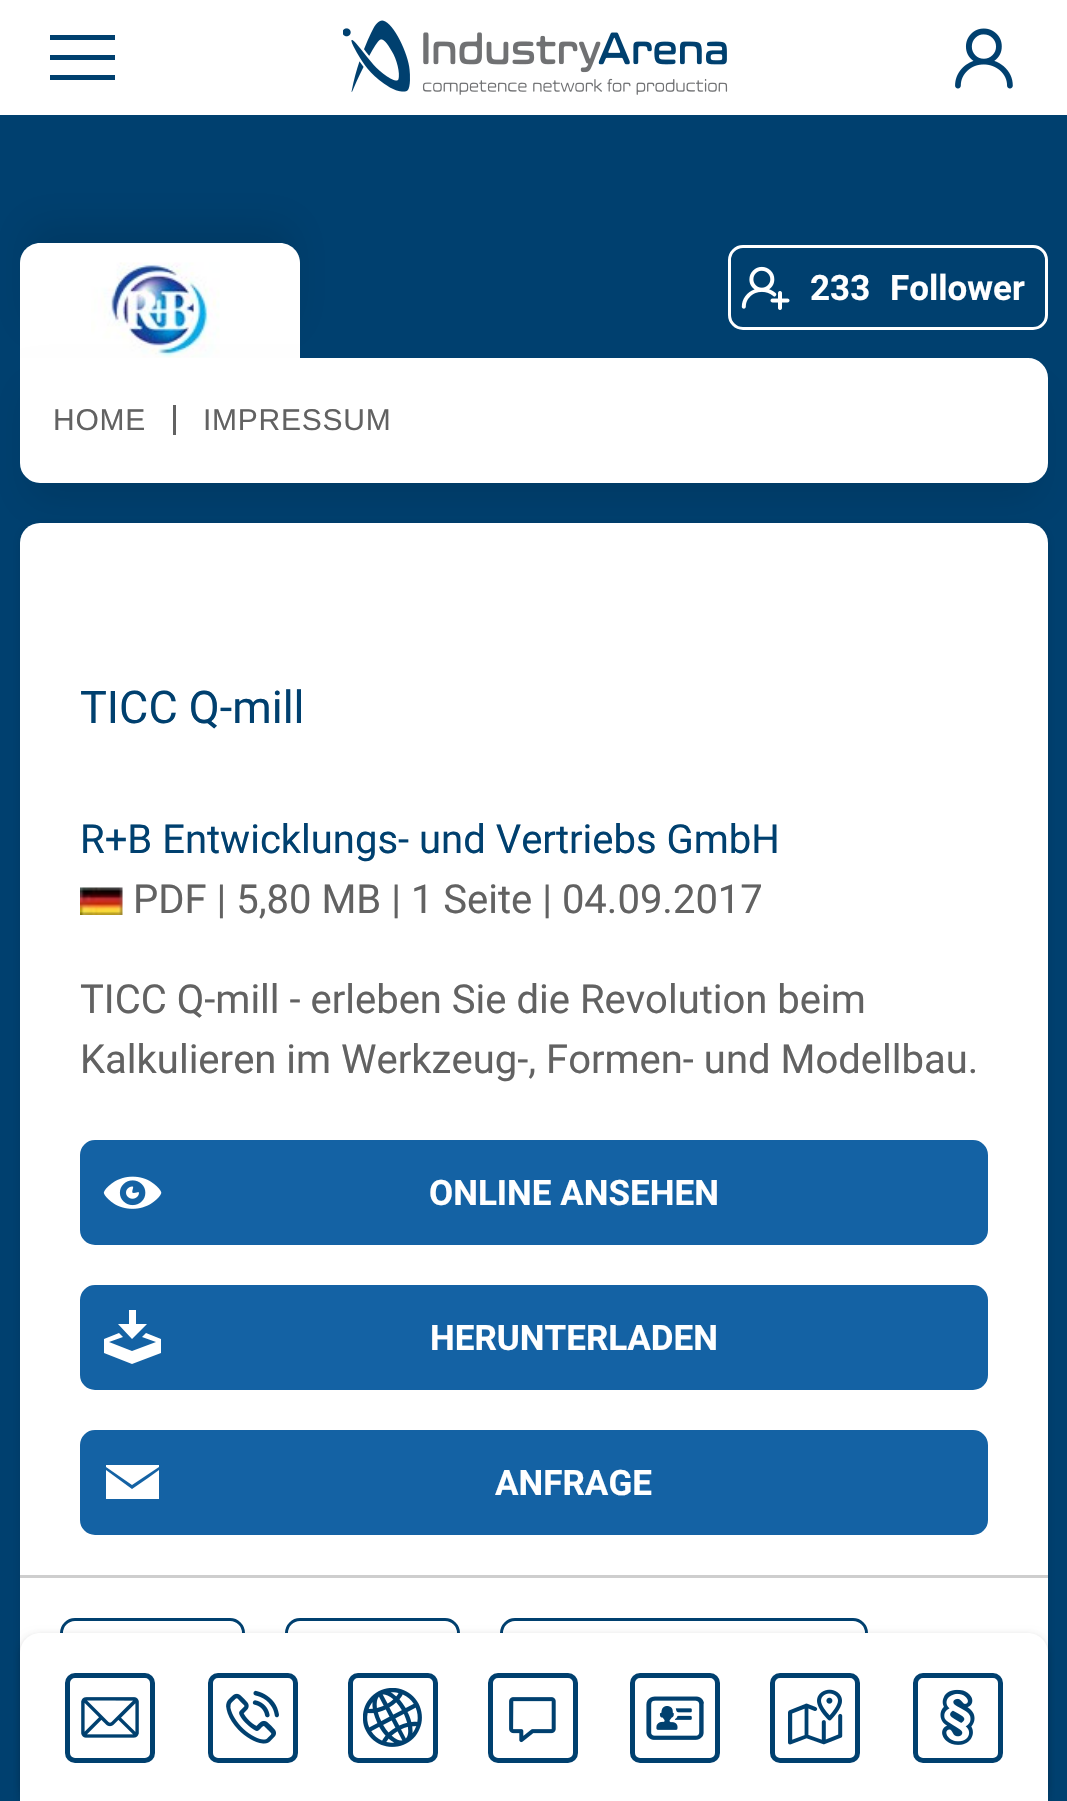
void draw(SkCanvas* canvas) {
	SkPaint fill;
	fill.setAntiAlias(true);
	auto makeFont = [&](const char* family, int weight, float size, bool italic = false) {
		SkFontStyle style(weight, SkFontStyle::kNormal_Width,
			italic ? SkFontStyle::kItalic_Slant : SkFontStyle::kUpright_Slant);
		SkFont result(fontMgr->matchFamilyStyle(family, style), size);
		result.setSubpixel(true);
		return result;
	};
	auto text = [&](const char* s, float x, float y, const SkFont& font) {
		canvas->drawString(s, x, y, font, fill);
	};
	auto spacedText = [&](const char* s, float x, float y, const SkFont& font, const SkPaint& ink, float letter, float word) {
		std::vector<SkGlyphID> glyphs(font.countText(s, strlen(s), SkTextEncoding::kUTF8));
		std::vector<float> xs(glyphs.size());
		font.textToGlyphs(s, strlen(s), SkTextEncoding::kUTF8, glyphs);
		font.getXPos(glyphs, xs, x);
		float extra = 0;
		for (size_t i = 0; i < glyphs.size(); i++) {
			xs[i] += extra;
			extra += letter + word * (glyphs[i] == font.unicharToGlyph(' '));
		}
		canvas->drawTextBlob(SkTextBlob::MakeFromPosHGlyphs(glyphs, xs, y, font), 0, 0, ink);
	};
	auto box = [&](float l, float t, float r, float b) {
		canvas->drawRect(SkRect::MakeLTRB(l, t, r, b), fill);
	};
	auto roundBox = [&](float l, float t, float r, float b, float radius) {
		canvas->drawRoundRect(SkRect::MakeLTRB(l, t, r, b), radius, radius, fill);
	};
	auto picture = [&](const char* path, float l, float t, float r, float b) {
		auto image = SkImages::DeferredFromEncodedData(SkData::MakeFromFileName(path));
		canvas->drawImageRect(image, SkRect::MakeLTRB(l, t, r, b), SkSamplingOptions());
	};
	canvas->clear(0xFF00406F);
	fill.setColor(0xFFFFFFFF);
	box(0, 0, 1067, 115);
	fill.setColor(0xFF00406F);
	box(50, 35, 115, 40);
	box(50, 55, 115, 60);
	box(50, 75, 115, 80);
	picture("image0.png", 343, 20, 728, 95);
	picture("image1.png", 955, 28, 1013, 89);
	fill.setColor(0x1A000000);
	fill.setMaskFilter(SkMaskFilter::MakeBlur(kNormal_SkBlurStyle, 19));
	canvas->drawRoundRect(SkRect::MakeLTRB(28, 225, 293, 325), 13, 13, fill);
	fill.setMaskFilter(nullptr);
	fill.setColor(0xFFFFFFFF);
	canvas->drawPath(SkPathBuilder().moveTo(40, 243).lineTo(280, 243).cubicTo(291, 243, 300, 252, 300, 263).lineTo(300, 358).lineTo(20, 358).lineTo(20, 263).cubicTo(20, 252, 29, 243, 40, 243).close().detach(), fill);
	picture("image2.png", 91, 262, 220, 358);
	fill.setStyle(SkPaint::kStroke_Style);
	fill.setStrokeWidth(3);
	canvas->drawRoundRect(SkRect::MakeLTRB(729.5f, 246.5f, 1046.5f, 328.5f), 13.5f, 13.5f, fill);
	picture("image3.png", 741, 266, 790, 310);
	fill.setStyle(SkPaint::kFill_Style);
	fill.setColor(0x1A000000);
	fill.setMaskFilter(SkMaskFilter::MakeBlur(kNormal_SkBlurStyle, 19));
	canvas->drawRoundRect(SkRect::MakeLTRB(28, 390, 1040, 500), 13, 13, fill);
	fill.setMaskFilter(nullptr);
	fill.setColor(0xFFFFFFFF);
	canvas->drawPath(SkPathBuilder().moveTo(21.5f, 359.5f).lineTo(1028, 359.5f).cubicTo(1038, 359.5f, 1046.5f, 368, 1046.5f, 378).lineTo(1046.5f, 463).cubicTo(1046.5f, 473, 1038, 481.5f, 1028, 481.5f).lineTo(40, 481.5f).cubicTo(30, 481.5f, 21.5f, 473, 21.5f, 463).close().detach(), fill);
	fill.setStyle(SkPaint::kStroke_Style);
	canvas->drawPath(SkPathBuilder().moveTo(21.5f, 359.5f).lineTo(1028, 359.5f).cubicTo(1038, 359.5f, 1046.5f, 368, 1046.5f, 378).lineTo(1046.5f, 463).cubicTo(1046.5f, 473, 1038, 481.5f, 1028, 481.5f).lineTo(40, 481.5f).cubicTo(30, 481.5f, 21.5f, 473, 21.5f, 463).close().detach(), fill);
	fill.setStyle(SkPaint::kFill_Style);
	fill.setColor(0xFF626262);
	box(173, 405, 176, 435);
	fill.setColor(0x1A000000);
	fill.setMaskFilter(SkMaskFilter::MakeBlur(kNormal_SkBlurStyle, 4));
	canvas->drawRoundRect(SkRect::MakeLTRB(20, 525, 1048, 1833), 20, 20, fill);
	fill.setMaskFilter(nullptr);
	fill.setColor(0xFFFFFFFF);
	roundBox(20, 523, 1048, 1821, 20);
	picture("image4.png", 80, 887, 123, 915);
	fill.setColor(0xFF1462A4);
	canvas->drawRoundRect(SkRect::MakeLTRB(81.5f, 1141.5f, 986.5f, 1243.5f), 13.5f, 13.5f, fill);
	fill.setStyle(SkPaint::kStroke_Style);
	canvas->drawRoundRect(SkRect::MakeLTRB(81.5f, 1141.5f, 986.5f, 1243.5f), 13.5f, 13.5f, fill);
	picture("image5.png", 103, 1176, 162, 1209);
	fill.setStyle(SkPaint::kFill_Style);
	canvas->drawRoundRect(SkRect::MakeLTRB(81.5f, 1286.5f, 986.5f, 1388.5f), 13.5f, 13.5f, fill);
	fill.setStyle(SkPaint::kStroke_Style);
	canvas->drawRoundRect(SkRect::MakeLTRB(81.5f, 1286.5f, 986.5f, 1388.5f), 13.5f, 13.5f, fill);
	fill.setStyle(SkPaint::kFill_Style);
	fill.setColor(0xFFFFFFFF);
	canvas->drawPath(SkPathBuilder().moveTo(161, 1339).lineTo(161, 1353).lineTo(132, 1364).lineTo(104, 1353).lineTo(104, 1339).lineTo(119, 1333).lineTo(123, 1337).lineTo(109, 1342).lineTo(132, 1351).lineTo(156, 1342).lineTo(142, 1337).lineTo(146, 1333).close().moveTo(118, 1324).lineTo(129, 1324).lineTo(129, 1310).lineTo(136, 1310).lineTo(136, 1324).lineTo(147, 1324).lineTo(132, 1339).close().detach(), fill);
	fill.setColor(0xFF1462A4);
	canvas->drawRoundRect(SkRect::MakeLTRB(81.5f, 1431.5f, 986.5f, 1533.5f), 13.5f, 13.5f, fill);
	fill.setStyle(SkPaint::kStroke_Style);
	canvas->drawRoundRect(SkRect::MakeLTRB(81.5f, 1431.5f, 986.5f, 1533.5f), 13.5f, 13.5f, fill);
	fill.setStyle(SkPaint::kFill_Style);
	fill.setColor(0xFFFFFFFF);
	canvas->drawPath(SkPathBuilder().moveTo(159, 1465).lineTo(159, 1467).lineTo(132, 1485).lineTo(106, 1467).lineTo(106, 1465).close().moveTo(148, 1478).lineTo(159, 1470).lineTo(159, 1499).lineTo(106, 1499).lineTo(106, 1470).lineTo(132, 1489).close().detach(), fill);
	fill.setColor(0xFFCECECE);
	box(20, 1575, 1048, 1578);
	fill.setStyle(SkPaint::kStroke_Style);
	fill.setColor(0xFF00406F);
	canvas->drawRoundRect(SkRect::MakeLTRB(61.5f, 1619.5f, 243.5f, 1703.5f), 13.5f, 13.5f, fill);
	canvas->drawRoundRect(SkRect::MakeLTRB(286.5f, 1619.5f, 458.5f, 1703.5f), 13.5f, 13.5f, fill);
	canvas->drawRoundRect(SkRect::MakeLTRB(501.5f, 1619.5f, 866.5f, 1703.5f), 13.5f, 13.5f, fill);
	fill.setStyle(SkPaint::kFill_Style);
	fill.setColor(0x0F000000);
	fill.setMaskFilter(SkMaskFilter::MakeBlur(kNormal_SkBlurStyle, 2.5f));
	canvas->drawRoundRect(SkRect::MakeLTRB(20, 1635, 1048, 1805), 20, 20, fill);
	fill.setMaskFilter(nullptr);
	fill.setColor(0x1A000000);
	fill.setMaskFilter(SkMaskFilter::MakeBlur(kNormal_SkBlurStyle, 4));
	canvas->drawRoundRect(SkRect::MakeLTRB(20, 1635, 1048, 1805), 20, 20, fill);
	fill.setMaskFilter(nullptr);
	fill.setColor(0xFFFFFFFF);
	canvas->drawPath(SkPathBuilder().moveTo(40, 1633).lineTo(1028, 1633).cubicTo(1039, 1633, 1048, 1642, 1048, 1653).lineTo(1048, 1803).lineTo(20, 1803).lineTo(20, 1653).cubicTo(20, 1642, 29, 1633, 40, 1633).close().detach(), fill);
	fill.setStyle(SkPaint::kStroke_Style);
	fill.setStrokeWidth(5);
	fill.setColor(0xFF00406F);
	canvas->drawRoundRect(SkRect::MakeLTRB(67.5f, 1675.5f, 152.5f, 1760.5f), 7.5f, 7.5f, fill);
	picture("image6.png", 81, 1697, 139, 1738);
	canvas->drawRoundRect(SkRect::MakeLTRB(210.5f, 1675.5f, 295.5f, 1760.5f), 7.5f, 7.5f, fill);
	picture("image7.png", 226, 1690, 279, 1744);
	canvas->drawRoundRect(SkRect::MakeLTRB(350.5f, 1675.5f, 435.5f, 1760.5f), 7.5f, 7.5f, fill);
	picture("image8.png", 363, 1688, 422, 1747);
	canvas->drawRoundRect(SkRect::MakeLTRB(490.5f, 1675.5f, 575.5f, 1760.5f), 7.5f, 7.5f, fill);
	picture("image9.png", 509, 1697, 556, 1743);
	canvas->drawRoundRect(SkRect::MakeLTRB(632.5f, 1675.5f, 717.5f, 1760.5f), 7.5f, 7.5f, fill);
	picture("image10.png", 646, 1696, 704, 1740);
	canvas->drawRoundRect(SkRect::MakeLTRB(772.5f, 1675.5f, 857.5f, 1760.5f), 7.5f, 7.5f, fill);
	picture("image11.png", 788, 1689, 843, 1745);
	canvas->drawRoundRect(SkRect::MakeLTRB(915.5f, 1675.5f, 1000.5f, 1760.5f), 7.5f, 7.5f, fill);
	picture("image12.png", 940, 1689, 975, 1745);
	auto font1 = makeFont("Roboto", 700, 35);
	fill.setStyle(SkPaint::kFill_Style);
	fill.setColor(0xFFFFFFFF);
	text("233", 810, 300, font1);
	text("Follower", 890, 300, font1);
	auto font2 = makeFont("Liberation Sans", 400, 30);
	fill.setColor(0xFF626262);
	spacedText("HOME", 53, 430, font2, fill, 0.75f, 0);
	spacedText("IMPRESSUM", 203, 430, font2, fill, 0.75f, 0);
	auto font3 = makeFont("Roboto", 400, 45);
	fill.setColor(0xFF00406F);
	text("TICC Q-mill", 80, 723, font3);
	auto font4 = makeFont("Roboto", 400, 40);
	text("R+B Entwicklungs- und Vertriebs GmbH", 80, 853, font4);
	fill.setColor(0xFF626262);
	text("PDF | 5,80 MB | 1 Seite | 04.09.2017", 133, 913, font4);
	text("TICC Q-mill - erleben Sie die Revolution beim", 80, 1013, font4);
	text("Kalkulieren im Werkzeug-, Formen- und Modellbau.", 80, 1073, font4);
	fill.setColor(0xFFFFFFFF);
	text("ONLINE ANSEHEN", 429, 1205, font1);
	text("HERUNTERLADEN", 430, 1350, font1);
	text("ANFRAGE", 495, 1495, font1);
}
